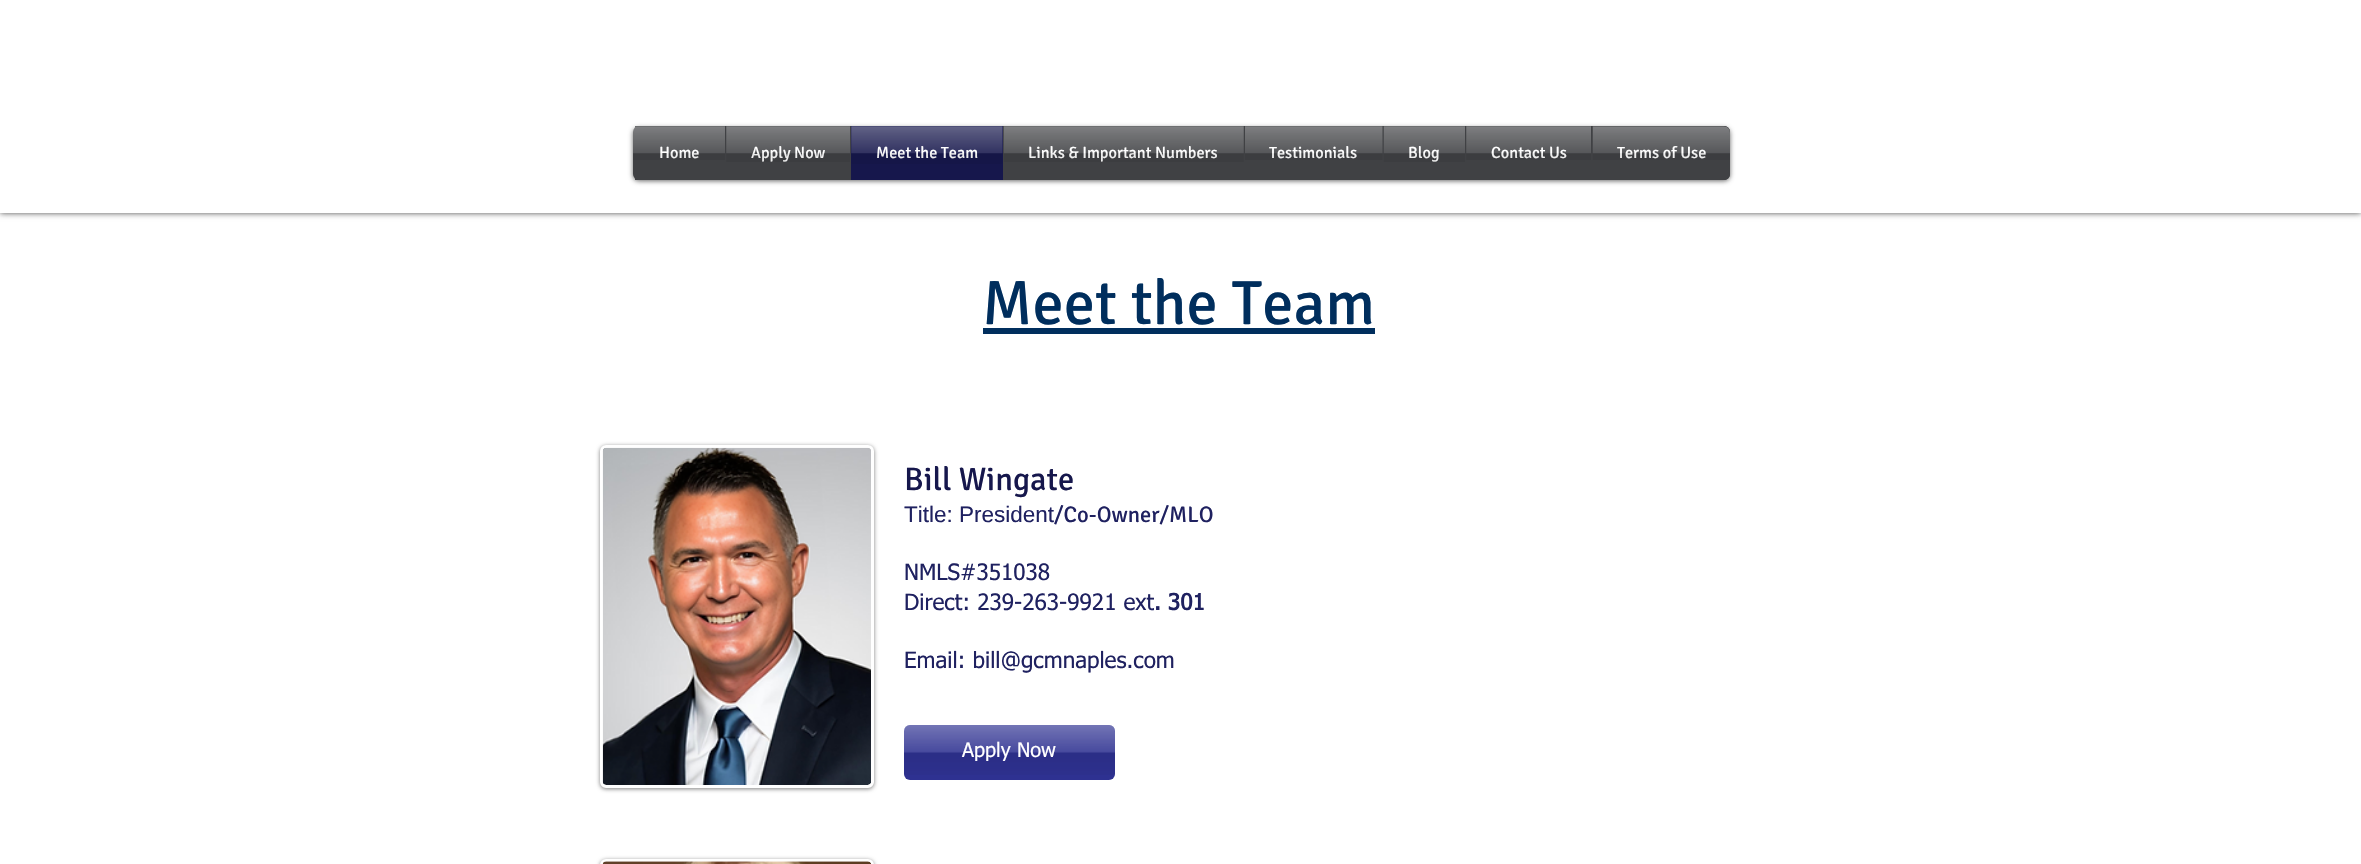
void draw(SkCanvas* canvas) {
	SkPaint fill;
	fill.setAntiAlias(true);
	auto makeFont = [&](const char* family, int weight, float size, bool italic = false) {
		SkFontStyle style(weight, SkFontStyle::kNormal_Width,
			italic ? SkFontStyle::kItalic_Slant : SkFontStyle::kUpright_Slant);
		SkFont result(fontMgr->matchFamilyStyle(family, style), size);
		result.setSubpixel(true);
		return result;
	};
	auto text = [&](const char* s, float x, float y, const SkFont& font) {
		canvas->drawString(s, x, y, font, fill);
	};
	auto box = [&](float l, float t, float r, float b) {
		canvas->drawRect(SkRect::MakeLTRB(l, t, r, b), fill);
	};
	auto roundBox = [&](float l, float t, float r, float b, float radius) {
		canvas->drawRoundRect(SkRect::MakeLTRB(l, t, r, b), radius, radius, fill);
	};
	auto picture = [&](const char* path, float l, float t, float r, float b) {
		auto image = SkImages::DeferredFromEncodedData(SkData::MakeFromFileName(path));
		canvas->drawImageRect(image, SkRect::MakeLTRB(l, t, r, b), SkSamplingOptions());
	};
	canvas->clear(0xFFFFFFFF);
	canvas->save();
	canvas->clipPath(SkPathBuilder(SkPathFillType::kEvenOdd).moveTo(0, 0).lineTo(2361, 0).lineTo(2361, 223).lineTo(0, 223).close().moveTo(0, 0).lineTo(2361, 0).lineTo(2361, 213).lineTo(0, 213).close().detach(), true);
	fill.setColor(0xB3000000);
	fill.setMaskFilter(SkMaskFilter::MakeBlur(kNormal_SkBlurStyle, 3));
	canvas->drawRect(SkRect::MakeLTRB(0, 0, 2361, 213), fill);
	fill.setMaskFilter(nullptr);
	canvas->restore();
	fill.setColor(0x99000000);
	fill.setMaskFilter(SkMaskFilter::MakeBlur(kNormal_SkBlurStyle, 2.5f));
	canvas->drawRoundRect(SkRect::MakeLTRB(633, 128, 1730, 181), 6, 6, fill);
	fill.setMaskFilter(nullptr);
	fill.setColor(0xFF404144);
	roundBox(633, 126, 1730, 180, 6);
	picture("image0.png", 633, 126, 1730, 160);
	box(635, 126, 725, 180);
	box(725, 126, 851, 160);
	fill.setColor(0xFF16174C);
	box(851, 126, 1003, 180);
	fill.setColor(0xFF404144);
	box(1003, 126, 1591, 160);
	canvas->drawPath(SkPathBuilder().moveTo(1591, 126).lineTo(1724, 126).cubicTo(1727.5f, 126, 1730, 128.5f, 1730, 132).lineTo(1730, 174).cubicTo(1730, 177.5f, 1727.5f, 180, 1724, 180).lineTo(1591, 180).close().detach(), fill);
	fill.setColor(0xFF002E5D);
	box(983, 328, 1375, 334);
	fill.setColor(0x80000000);
	fill.setMaskFilter(SkMaskFilter::MakeBlur(kNormal_SkBlurStyle, 2));
	canvas->drawRoundRect(SkRect::MakeLTRB(600, 446, 874, 789), 6, 6, fill);
	fill.setMaskFilter(nullptr);
	fill.setColor(0xFFFFFFFF);
	canvas->drawRoundRect(SkRect::MakeLTRB(601.5f, 446.5f, 872.5f, 786.5f), 4.5f, 4.5f, fill);
	fill.setStyle(SkPaint::kStroke_Style);
	fill.setStrokeWidth(3);
	canvas->drawRoundRect(SkRect::MakeLTRB(601.5f, 446.5f, 872.5f, 786.5f), 4.5f, 4.5f, fill);
	picture("image9.png", 602, 447, 871, 785);
	fill.setStyle(SkPaint::kFill_Style);
	fill.setColor(0xFF2E3191);
	roundBox(904, 725, 1115, 780, 6);
	picture("image10.png", 904, 725, 1115, 775);
	fill.setColor(0x80000000);
	fill.setMaskFilter(SkMaskFilter::MakeBlur(kNormal_SkBlurStyle, 2));
	canvas->drawRoundRect(SkRect::MakeLTRB(600, 860, 874, 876), 6, 6, fill);
	fill.setMaskFilter(nullptr);
	fill.setStyle(SkPaint::kStroke_Style);
	fill.setColor(0xFFFFFFFF);
	canvas->drawRoundRect(SkRect::MakeLTRB(601.5f, 860.5f, 872.5f, 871.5f), 4.5f, 4.5f, fill);
	picture("image11.png", 602, 861, 871, 864);
	auto font1 = makeFont("Signika", 400, 16.25f);
	fill.setStyle(SkPaint::kFill_Style);
	text("Home", 659, 158, font1);
	picture("image1.png", 635, 126, 725, 160);
	text("Apply Now", 751, 158, font1);
	picture("image2.png", 726, 126, 850, 162);
	text("Meet the Team", 876, 158, font1);
	picture("image3.png", 851, 126, 1003, 164);
	text("Links & Important Numbers", 1028, 158, font1);
	picture("image4.png", 1003, 126, 1244, 162);
	text("Testimonials", 1269, 158, font1);
	picture("image5.png", 1245, 126, 1383, 160);
	text("Blog", 1408, 158, font1);
	picture("image6.png", 1383, 126, 1465, 162);
	text("Contact Us", 1491, 158, font1);
	picture("image7.png", 1466, 126, 1591, 160);
	text("Terms of Use", 1617, 158, font1);
	picture("image8.png", 1592, 126, 1730, 160);
	auto font2 = makeFont("Signika", 400, 62.5f);
	fill.setColor(0xFF002E5D);
	text("Meet the Team", 982, 324, font2);
	auto font3 = makeFont("Signika", 400, 32.5f);
	fill.setColor(0xFF16174C);
	text("Bill Wingate", 904, 490, font3);
	auto font4 = makeFont("Liberation Sans", 400, 22.5f);
	fill.setColor(0xFF1F2160);
	text("Title: President", 904, 522, font4);
	auto font5 = makeFont("Signika", 400, 22.5f);
	text("/Co-Owner/MLO", 1054, 522, font5);
	auto font6 = makeFont("tahoma", 400, 22.5f);
	text("NMLS#351038", 904, 580, font6);
	text("Direct: 239-263-9921 ext", 904, 610, font6);
	auto font7 = makeFont("tahoma", 700, 22.5f);
	text(". 301", 1154, 610, font7);
	text("Email: bill@gcmnaples.com", 904, 668, font6);
	auto font8 = makeFont("tahoma", 400, 20);
	fill.setColor(0xFFFFFFFF);
	text("Apply Now", 962, 757, font8);
}
